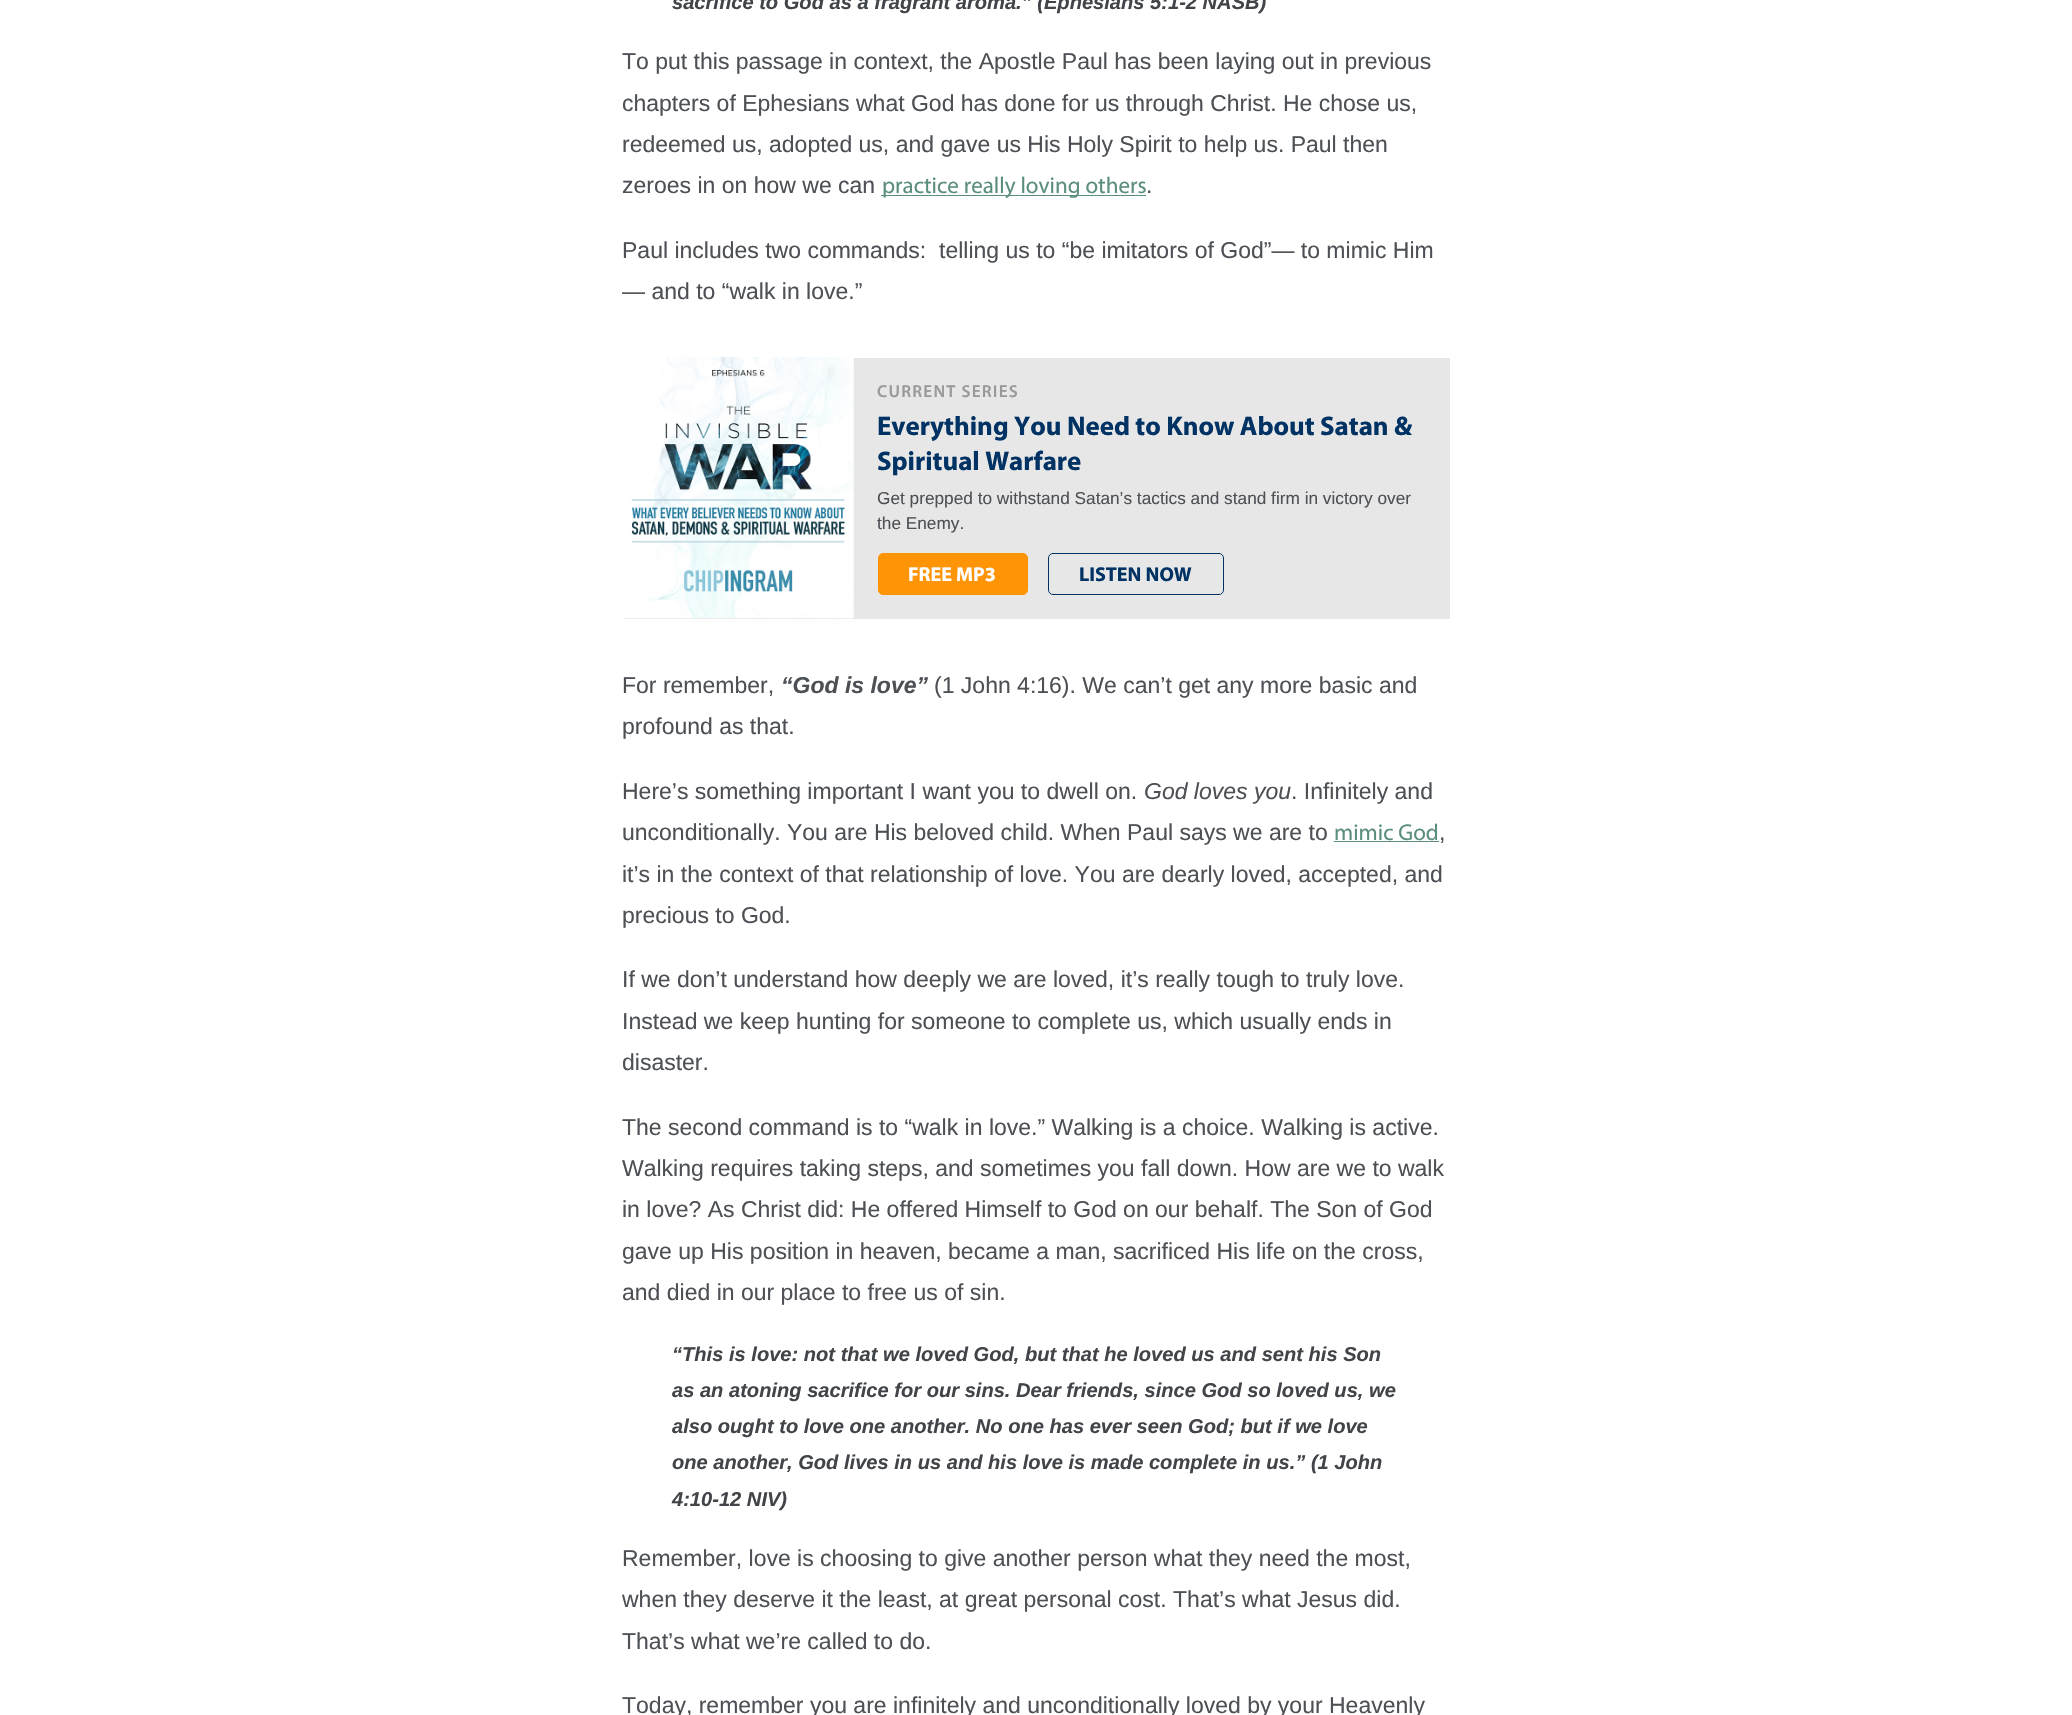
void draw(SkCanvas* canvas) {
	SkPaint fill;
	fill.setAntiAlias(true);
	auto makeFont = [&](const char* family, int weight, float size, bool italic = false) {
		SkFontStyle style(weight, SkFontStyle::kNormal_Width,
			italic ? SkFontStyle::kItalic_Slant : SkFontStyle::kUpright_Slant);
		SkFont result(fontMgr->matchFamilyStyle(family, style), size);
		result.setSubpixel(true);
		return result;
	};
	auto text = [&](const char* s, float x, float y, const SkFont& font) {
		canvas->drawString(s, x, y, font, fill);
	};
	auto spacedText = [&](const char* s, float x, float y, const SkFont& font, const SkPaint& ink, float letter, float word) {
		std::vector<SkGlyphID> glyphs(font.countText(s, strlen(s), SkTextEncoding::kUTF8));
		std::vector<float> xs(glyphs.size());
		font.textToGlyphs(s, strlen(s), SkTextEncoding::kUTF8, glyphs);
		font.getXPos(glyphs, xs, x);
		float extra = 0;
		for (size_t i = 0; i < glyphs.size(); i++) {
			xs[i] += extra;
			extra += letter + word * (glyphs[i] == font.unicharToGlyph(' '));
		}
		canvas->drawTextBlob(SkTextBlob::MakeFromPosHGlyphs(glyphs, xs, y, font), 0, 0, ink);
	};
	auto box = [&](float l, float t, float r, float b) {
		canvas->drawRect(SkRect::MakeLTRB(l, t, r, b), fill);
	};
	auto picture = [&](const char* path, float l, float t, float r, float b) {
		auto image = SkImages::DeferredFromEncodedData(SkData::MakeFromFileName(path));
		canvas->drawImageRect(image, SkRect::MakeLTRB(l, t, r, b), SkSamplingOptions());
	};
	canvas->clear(0xFFFFFFFF);
	fill.setColor(0xFF5B8E7F);
	box(881, 195, 1146, 196);
	fill.setColor(0xFFE7E7E7);
	box(623, 358, 1450, 619);
	picture("image0.png", 623, 357, 854, 619);
	fill.setColor(0xFFFF9406);
	canvas->drawRoundRect(SkRect::MakeLTRB(878.5f, 553.5f, 1027.5f, 594.5f), 4.5f, 4.5f, fill);
	fill.setStyle(SkPaint::kStroke_Style);
	fill.setStrokeWidth(1);
	canvas->drawRoundRect(SkRect::MakeLTRB(878.5f, 553.5f, 1027.5f, 594.5f), 4.5f, 4.5f, fill);
	fill.setColor(0xFF003263);
	canvas->drawRoundRect(SkRect::MakeLTRB(1048.5f, 553.5f, 1223.5f, 594.5f), 4.5f, 4.5f, fill);
	fill.setStyle(SkPaint::kFill_Style);
	fill.setColor(0xFF5B8E7F);
	box(1334, 841, 1439, 842);
	auto font1 = makeFont("Liberation Sans", 700, 20.1f, true);
	fill.setColor(0xFF414448);
	text("sacrifice to God as a fragrant aroma.” (Ephesians 5:1-2 NASB)", 672, 9, font1);
	auto font2 = makeFont("Liberation Sans", 400, 23);
	fill.setColor(0xFF4D5155);
	text("To put this passage in context, the Apostle Paul has been laying out in previous", 622, 69, font2);
	text("chapters of Ephesians what God has done for us through Christ. He chose us,", 622, 111, font2);
	text("redeemed us, adopted us, and gave us His Holy Spirit to help us. Paul then", 622, 152, font2);
	text("zeroes in on how we can", 622, 193, font2);
	auto font3 = makeFont("Myriad", 400, 23);
	fill.setColor(0xFF5B8E7F);
	text("practice really loving others", 882, 193, font3);
	fill.setColor(0xFF4D5155);
	text(".", 1146, 193, font2);
	text("Paul includes two commands:  telling us to “be imitators of God”— to mimic Him", 622, 258, font2);
	text("— and to “walk in love.”", 622, 299, font2);
	auto font4 = makeFont("Myriad", 600, 17.25f);
	fill.setColor(0xFF999999);
	spacedText("CURRENT SERIES", 877, 397, font4, fill, 1.25f, 0);
	auto font5 = makeFont("Myriad", 700, 26.9f);
	fill.setColor(0xFF003263);
	text("Everything You Need to Know About Satan &", 877, 435, font5);
	text("Spiritual Warfare", 877, 470, font5);
	auto font6 = makeFont("Liberation Sans", 400, 17.25f);
	fill.setColor(0xFF4D5155);
	text("Get prepped to withstand Satan’s tactics and stand firm in victory over", 877, 504, font6);
	text("the Enemy.", 877, 529, font6);
	auto font7 = makeFont("Myriad", 700, 20.1f);
	fill.setColor(0xFFFFFFFF);
	text("FREE MP3", 908, 581, font7);
	fill.setColor(0xFF003263);
	text("LISTEN NOW", 1079, 581, font7);
	fill.setColor(0xFF4D5155);
	text("For remember,", 622, 693, font2);
	auto font8 = makeFont("Liberation Sans", 700, 23, true);
	text("“God is love”", 781, 693, font8);
	text("(1 John 4:16). We can’t get any more basic and", 934, 693, font2);
	text("profound as that.", 622, 734, font2);
	text("Here’s something important I want you to dwell on.", 622, 799, font2);
	auto font9 = makeFont("Liberation Sans", 400, 23, true);
	text("God loves you", 1144, 799, font9);
	text(". Infinitely and", 1291, 799, font2);
	text("unconditionally. You are His beloved child. When Paul says we are to", 622, 840, font2);
	fill.setColor(0xFF5B8E7F);
	text("mimic God", 1334, 840, font3);
	fill.setColor(0xFF4D5155);
	text(",", 1439, 840, font2);
	text("it’s in the context of that relationship of love. You are dearly loved, accepted, and", 622, 882, font2);
	text("precious to God.", 622, 923, font2);
	text("If we don’t understand how deeply we are loved, it’s really tough to truly love.", 622, 987, font2);
	text("Instead we keep hunting for someone to complete us, which usually ends in", 622, 1029, font2);
	text("disaster.", 622, 1070, font2);
	text("The second command is to “walk in love.” Walking is a choice. Walking is active.", 622, 1135, font2);
	text("Walking requires taking steps, and sometimes you fall down. How are we to walk", 622, 1176, font2);
	text("in love? As Christ did: He offered Himself to God on our behalf. The Son of God", 622, 1217, font2);
	text("gave up His position in heaven, became a man, sacrificed His life on the cross,", 622, 1259, font2);
	text("and died in our place to free us of sin.", 622, 1300, font2);
	fill.setColor(0xFF414448);
	text("“This is love: not that we loved God, but that he loved us and sent his Son", 672, 1361, font1);
	text("as an atoning sacrifice for our sins. Dear friends, since God so loved us, we", 672, 1397, font1);
	text("also ought to love one another. No one has ever seen God; but if we love", 672, 1433, font1);
	text("one another, God lives in us and his love is made complete in us.” (1 John", 672, 1469, font1);
	text("4:10-12 NIV)", 672, 1506, font1);
	fill.setColor(0xFF4D5155);
	text("Remember, love is choosing to give another person what they need the most,", 622, 1566, font2);
	text("when they deserve it the least, at great personal cost. That’s what Jesus did.", 622, 1607, font2);
	text("That’s what we’re called to do.", 622, 1649, font2);
	text("Today, remember you are infinitely and unconditionally loved by your Heavenly", 622, 1713, font2);
}
